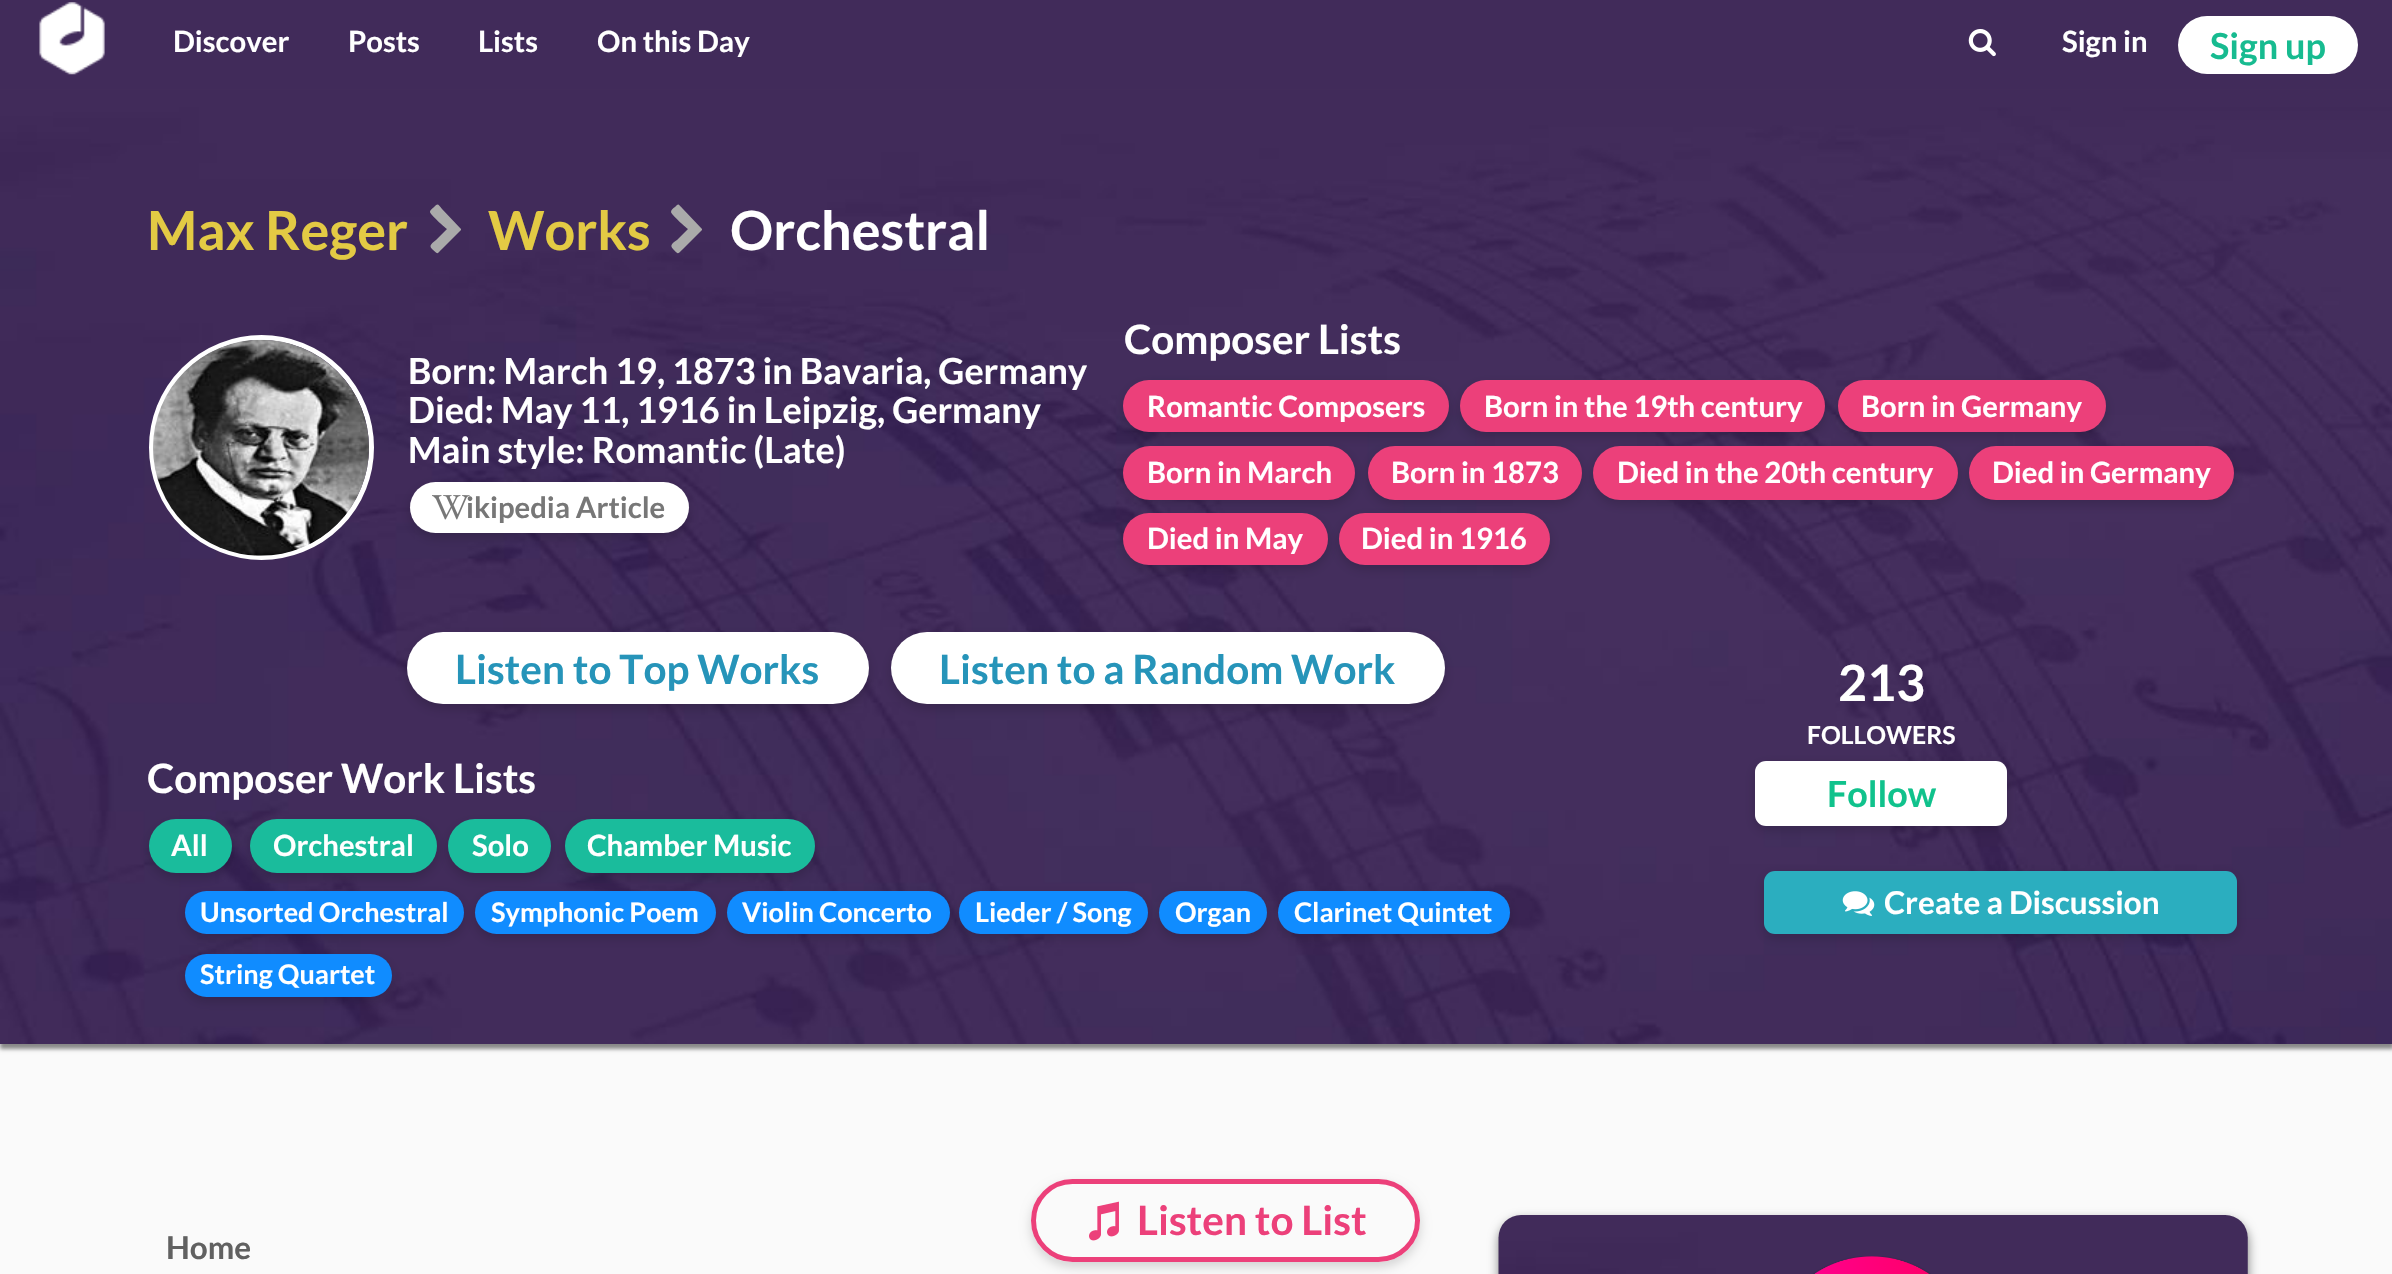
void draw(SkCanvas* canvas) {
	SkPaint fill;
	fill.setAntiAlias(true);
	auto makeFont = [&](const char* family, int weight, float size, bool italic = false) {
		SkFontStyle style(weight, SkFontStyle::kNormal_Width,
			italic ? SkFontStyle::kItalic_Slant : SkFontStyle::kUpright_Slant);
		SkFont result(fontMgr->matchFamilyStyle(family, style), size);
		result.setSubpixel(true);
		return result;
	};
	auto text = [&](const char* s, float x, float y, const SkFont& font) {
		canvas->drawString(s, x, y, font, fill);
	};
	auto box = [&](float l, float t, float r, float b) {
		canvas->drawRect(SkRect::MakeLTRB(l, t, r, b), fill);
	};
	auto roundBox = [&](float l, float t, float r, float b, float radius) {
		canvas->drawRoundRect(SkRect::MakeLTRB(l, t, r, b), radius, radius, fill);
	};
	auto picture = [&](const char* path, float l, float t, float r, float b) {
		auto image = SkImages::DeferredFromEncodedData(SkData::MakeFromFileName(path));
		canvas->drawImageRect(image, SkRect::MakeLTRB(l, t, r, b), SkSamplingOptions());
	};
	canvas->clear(0xFFFAFAFA);
	fill.setColor(0xFF412B5A);
	box(0, 0, 2392, 90);
	picture("image0.png", 39, 2, 105, 75);
	picture("image1.png", 1968, 29, 1996, 57);
	fill.setColor(0xFFFFFFFF);
	roundBox(2178, 16, 2358, 74, 29);
	fill.setColor(0xFF888888);
	fill.setMaskFilter(SkMaskFilter::MakeBlur(kNormal_SkBlurStyle, 2));
	canvas->drawRect(SkRect::MakeLTRB(0, 95, 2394, 1049), fill);
	fill.setMaskFilter(nullptr);
	picture("image2.png", 0, 90, 2392, 1044);
	fill.setColor(0xFFAAAAAA);
	canvas->drawPath(SkPathBuilder().moveTo(461, 230).lineTo(442, 249).cubicTo(436, 255, 438, 254, 432, 249).cubicTo(428, 245, 433, 243, 436, 240).lineTo(447, 229).cubicTo(444, 227, 430, 214, 430, 212).cubicTo(430, 210, 433, 208, 434, 207).cubicTo(438, 203, 438, 204, 442, 209).lineTo(461, 229).close().detach(), fill);
	canvas->drawPath(SkPathBuilder().moveTo(702, 230).lineTo(683, 249).cubicTo(677, 255, 678, 254, 673, 249).cubicTo(669, 245, 673, 243, 677, 240).lineTo(688, 229).cubicTo(685, 227, 671, 214, 671, 212).cubicTo(671, 210, 673, 208, 675, 207).cubicTo(679, 203, 678, 204, 683, 209).lineTo(702, 229).close().detach(), fill);
	fill.setStyle(SkPaint::kStroke_Style);
	fill.setStrokeWidth(5);
	fill.setColor(0xFFFFFFFF);
	canvas->drawCircle(261.5f, 447.5f, 110, fill);
	picture("image3.png", 153, 339, 369, 556);
	fill.setStyle(SkPaint::kFill_Style);
	fill.setColor(0x29000000);
	fill.setMaskFilter(SkMaskFilter::MakeBlur(kNormal_SkBlurStyle, 5.5f));
	canvas->drawRoundRect(SkRect::MakeLTRB(410, 486, 689, 538), 26, 26, fill);
	fill.setMaskFilter(nullptr);
	fill.setColor(0xFFFFFFFF);
	roundBox(410, 482, 689, 533, 25.5f);
	picture("image4.png", 432, 495, 470, 520);
	fill.setColor(0x29000000);
	fill.setMaskFilter(SkMaskFilter::MakeBlur(kNormal_SkBlurStyle, 5.5f));
	canvas->drawRoundRect(SkRect::MakeLTRB(1123, 385, 1449, 437), 26, 26, fill);
	fill.setMaskFilter(nullptr);
	fill.setColor(0xFFEC407A);
	roundBox(1123, 380, 1449, 432, 26);
	fill.setColor(0x29000000);
	fill.setMaskFilter(SkMaskFilter::MakeBlur(kNormal_SkBlurStyle, 5.5f));
	canvas->drawRoundRect(SkRect::MakeLTRB(1460, 385, 1825, 437), 26, 26, fill);
	fill.setMaskFilter(nullptr);
	fill.setColor(0xFFEC407A);
	roundBox(1460, 380, 1825, 432, 26);
	fill.setColor(0x29000000);
	fill.setMaskFilter(SkMaskFilter::MakeBlur(kNormal_SkBlurStyle, 5.5f));
	canvas->drawRoundRect(SkRect::MakeLTRB(1838, 385, 2106, 437), 26, 26, fill);
	fill.setMaskFilter(nullptr);
	fill.setColor(0xFFEC407A);
	roundBox(1838, 380, 2106, 432, 26);
	fill.setColor(0x29000000);
	fill.setMaskFilter(SkMaskFilter::MakeBlur(kNormal_SkBlurStyle, 5.5f));
	canvas->drawRoundRect(SkRect::MakeLTRB(1123, 450, 1355, 504), 27, 27, fill);
	fill.setMaskFilter(nullptr);
	fill.setColor(0xFFEC407A);
	roundBox(1123, 446, 1355, 500, 27);
	fill.setColor(0x29000000);
	fill.setMaskFilter(SkMaskFilter::MakeBlur(kNormal_SkBlurStyle, 5.5f));
	canvas->drawRoundRect(SkRect::MakeLTRB(1368, 450, 1582, 504), 27, 27, fill);
	fill.setMaskFilter(nullptr);
	fill.setColor(0xFFEC407A);
	roundBox(1368, 446, 1582, 500, 27);
	fill.setColor(0x29000000);
	fill.setMaskFilter(SkMaskFilter::MakeBlur(kNormal_SkBlurStyle, 5.5f));
	canvas->drawRoundRect(SkRect::MakeLTRB(1593, 450, 1958, 504), 27, 27, fill);
	fill.setMaskFilter(nullptr);
	fill.setColor(0xFFEC407A);
	roundBox(1593, 446, 1958, 500, 27);
	fill.setColor(0x29000000);
	fill.setMaskFilter(SkMaskFilter::MakeBlur(kNormal_SkBlurStyle, 5.5f));
	canvas->drawRoundRect(SkRect::MakeLTRB(1969, 450, 2234, 504), 27, 27, fill);
	fill.setMaskFilter(nullptr);
	fill.setColor(0xFFEC407A);
	roundBox(1969, 446, 2234, 500, 27);
	fill.setColor(0x29000000);
	fill.setMaskFilter(SkMaskFilter::MakeBlur(kNormal_SkBlurStyle, 5.5f));
	canvas->drawRoundRect(SkRect::MakeLTRB(1123, 518, 1328, 569), 25.5f, 25.5f, fill);
	fill.setMaskFilter(nullptr);
	fill.setColor(0xFFEC407A);
	roundBox(1123, 513, 1328, 565, 26);
	fill.setColor(0x29000000);
	fill.setMaskFilter(SkMaskFilter::MakeBlur(kNormal_SkBlurStyle, 5.5f));
	canvas->drawRoundRect(SkRect::MakeLTRB(1339, 518, 1550, 569), 25.5f, 25.5f, fill);
	fill.setMaskFilter(nullptr);
	fill.setColor(0xFFEC407A);
	roundBox(1339, 513, 1550, 565, 26);
	fill.setColor(0x29000000);
	fill.setMaskFilter(SkMaskFilter::MakeBlur(kNormal_SkBlurStyle, 5.5f));
	canvas->drawRoundRect(SkRect::MakeLTRB(407, 637, 869, 709), 36, 36, fill);
	fill.setMaskFilter(nullptr);
	fill.setColor(0xFFFFFFFF);
	roundBox(407, 632, 869, 704, 36);
	fill.setColor(0x29000000);
	fill.setMaskFilter(SkMaskFilter::MakeBlur(kNormal_SkBlurStyle, 5.5f));
	canvas->drawRoundRect(SkRect::MakeLTRB(891, 637, 1445, 709), 36, 36, fill);
	fill.setMaskFilter(nullptr);
	fill.setColor(0xFFFFFFFF);
	roundBox(891, 632, 1445, 704, 36);
	fill.setColor(0x29000000);
	fill.setMaskFilter(SkMaskFilter::MakeBlur(kNormal_SkBlurStyle, 5.5f));
	canvas->drawRoundRect(SkRect::MakeLTRB(149, 824, 232, 878), 27, 27, fill);
	fill.setMaskFilter(nullptr);
	fill.setColor(0xFF1ABC9C);
	roundBox(149, 819, 232, 873, 27);
	fill.setColor(0x29000000);
	fill.setMaskFilter(SkMaskFilter::MakeBlur(kNormal_SkBlurStyle, 5.5f));
	canvas->drawRoundRect(SkRect::MakeLTRB(250, 824, 437, 878), 27, 27, fill);
	fill.setMaskFilter(nullptr);
	fill.setColor(0xFF1ABC9C);
	roundBox(250, 819, 437, 873, 27);
	fill.setColor(0x29000000);
	fill.setMaskFilter(SkMaskFilter::MakeBlur(kNormal_SkBlurStyle, 5.5f));
	canvas->drawRoundRect(SkRect::MakeLTRB(448, 824, 551, 878), 27, 27, fill);
	fill.setMaskFilter(nullptr);
	fill.setColor(0xFF1ABC9C);
	roundBox(448, 819, 551, 873, 27);
	fill.setColor(0x29000000);
	fill.setMaskFilter(SkMaskFilter::MakeBlur(kNormal_SkBlurStyle, 5.5f));
	canvas->drawRoundRect(SkRect::MakeLTRB(565, 824, 815, 878), 27, 27, fill);
	fill.setMaskFilter(nullptr);
	fill.setColor(0xFF1ABC9C);
	roundBox(565, 819, 815, 873, 27);
	fill.setColor(0x29000000);
	fill.setMaskFilter(SkMaskFilter::MakeBlur(kNormal_SkBlurStyle, 5.5f));
	canvas->drawRoundRect(SkRect::MakeLTRB(185, 896, 464, 938), 21, 21, fill);
	fill.setMaskFilter(nullptr);
	fill.setColor(0xFF108CFF);
	roundBox(185, 891, 464, 934, 21.5f);
	fill.setColor(0x29000000);
	fill.setMaskFilter(SkMaskFilter::MakeBlur(kNormal_SkBlurStyle, 5.5f));
	canvas->drawRoundRect(SkRect::MakeLTRB(475, 896, 716, 938), 21, 21, fill);
	fill.setMaskFilter(nullptr);
	fill.setColor(0xFF108CFF);
	roundBox(475, 891, 716, 934, 21.5f);
	fill.setColor(0x29000000);
	fill.setMaskFilter(SkMaskFilter::MakeBlur(kNormal_SkBlurStyle, 5.5f));
	canvas->drawRoundRect(SkRect::MakeLTRB(727, 896, 950, 938), 21, 21, fill);
	fill.setMaskFilter(nullptr);
	fill.setColor(0xFF108CFF);
	roundBox(727, 891, 950, 934, 21.5f);
	fill.setColor(0x29000000);
	fill.setMaskFilter(SkMaskFilter::MakeBlur(kNormal_SkBlurStyle, 5.5f));
	canvas->drawRoundRect(SkRect::MakeLTRB(959, 896, 1148, 938), 21, 21, fill);
	fill.setMaskFilter(nullptr);
	fill.setColor(0xFF108CFF);
	roundBox(959, 891, 1148, 934, 21.5f);
	fill.setColor(0x29000000);
	fill.setMaskFilter(SkMaskFilter::MakeBlur(kNormal_SkBlurStyle, 5.5f));
	canvas->drawRoundRect(SkRect::MakeLTRB(1159, 896, 1267, 938), 21, 21, fill);
	fill.setMaskFilter(nullptr);
	fill.setColor(0xFF108CFF);
	roundBox(1159, 891, 1267, 934, 21.5f);
	fill.setColor(0x29000000);
	fill.setMaskFilter(SkMaskFilter::MakeBlur(kNormal_SkBlurStyle, 5.5f));
	canvas->drawRoundRect(SkRect::MakeLTRB(1278, 896, 1510, 938), 21, 21, fill);
	fill.setMaskFilter(nullptr);
	fill.setColor(0xFF108CFF);
	roundBox(1278, 891, 1510, 934, 21.5f);
	fill.setColor(0x29000000);
	fill.setMaskFilter(SkMaskFilter::MakeBlur(kNormal_SkBlurStyle, 5.5f));
	canvas->drawRoundRect(SkRect::MakeLTRB(185, 959, 392, 1001), 21, 21, fill);
	fill.setMaskFilter(nullptr);
	fill.setColor(0xFF108CFF);
	roundBox(185, 954, 392, 997, 21.5f);
	fill.setColor(0x29000000);
	fill.setMaskFilter(SkMaskFilter::MakeBlur(kNormal_SkBlurStyle, 5.5f));
	canvas->drawRoundRect(SkRect::MakeLTRB(1755, 765, 2007, 830), 11, 11, fill);
	fill.setMaskFilter(nullptr);
	fill.setColor(0xFFFFFFFF);
	roundBox(1755, 761, 2007, 826, 11);
	fill.setColor(0x29000000);
	fill.setMaskFilter(SkMaskFilter::MakeBlur(kNormal_SkBlurStyle, 5.5f));
	canvas->drawRoundRect(SkRect::MakeLTRB(1764, 875, 2237, 938), 11, 11, fill);
	fill.setMaskFilter(nullptr);
	fill.setColor(0xFF2BAEBF);
	roundBox(1764, 871, 2237, 934, 11);
	picture("image5.png", 1842, 891, 1875, 916);
	canvas->save();
	canvas->clipPath(SkPathBuilder(SkPathFillType::kEvenOdd).moveTo(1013, 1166).lineTo(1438, 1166).lineTo(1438, 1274).lineTo(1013, 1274).close().moveTo(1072.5f, 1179).lineTo(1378.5f, 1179).cubicTo(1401.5f, 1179, 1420, 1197.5f, 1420, 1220.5f).cubicTo(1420, 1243.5f, 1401.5f, 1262, 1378.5f, 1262).lineTo(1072.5f, 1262).cubicTo(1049.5f, 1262, 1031, 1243.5f, 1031, 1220.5f).cubicTo(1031, 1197.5f, 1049.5f, 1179, 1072.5f, 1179).close().detach(), true);
	fill.setColor(0x29000000);
	fill.setMaskFilter(SkMaskFilter::MakeBlur(kNormal_SkBlurStyle, 5.5f));
	canvas->drawRoundRect(SkRect::MakeLTRB(1031, 1184, 1420, 1267), 41.5f, 41.5f, fill);
	fill.setMaskFilter(nullptr);
	canvas->restore();
	fill.setStyle(SkPaint::kStroke_Style);
	fill.setColor(0xFFEC407A);
	canvas->drawRoundRect(SkRect::MakeLTRB(1033.5f, 1181.5f, 1417.5f, 1259.5f), 39, 39, fill);
	picture("image6.png", 1089, 1201, 1119, 1241);
	fill.setStyle(SkPaint::kFill_Style);
	fill.setColor(0x80000000);
	fill.setMaskFilter(SkMaskFilter::MakeBlur(kNormal_SkBlurStyle, 5.5f));
	canvas->drawRoundRect(SkRect::MakeLTRB(1499, 1220, 2248, 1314), 23, 23, fill);
	fill.setMaskFilter(nullptr);
	picture("image7.png", 1498, 1215, 2248, 1274);
	picture("image8.png", 1813, 1256, 1931, 1274);
	auto font1 = makeFont("Lato", 700, 29.25f);
	fill.setColor(0xFFFFFFFF);
	text("Discover", 173, 52, font1);
	text("Posts", 348, 52, font1);
	text("Lists", 478, 52, font1);
	text("On this Day", 597, 52, font1);
	text("Sign in", 2062, 52, font1);
	auto font2 = makeFont("Lato", 700, 36);
	fill.setColor(0xFF17BB90);
	text("Sign up", 2210, 59, font2);
	auto font3 = makeFont("Lato", 700, 54);
	fill.setColor(0xFFE3CA44);
	text("Max Reger", 147, 250, font3);
	text("Works", 488, 250, font3);
	fill.setColor(0xFFFFFFFF);
	text("Orchestral", 730, 250, font3);
	text("Born: March 19, 1873 in Bavaria, Germany", 408, 384, font2);
	text("Died: May 11, 1916 in Leipzig, Germany", 408, 423, font2);
	text("Main style: Romantic (Late)", 408, 463, font2);
	fill.setColor(0xFF777777);
	text("ikipedia Article", 466, 518, font1);
	auto font4 = makeFont("Lato", 700, 40.5f);
	fill.setColor(0xFFFFFFFF);
	text("Composer Lists", 1124, 354, font4);
	text("Romantic Composers", 1147, 417, font1);
	text("Born in the 19th century", 1484, 417, font1);
	text("Born in Germany", 1861, 417, font1);
	text("Born in March", 1147, 483, font1);
	text("Born in 1873", 1391, 483, font1);
	text("Died in the 20th century", 1617, 483, font1);
	text("Died in Germany", 1992, 483, font1);
	text("Died in May", 1147, 549, font1);
	text("Died in 1916", 1361, 549, font1);
	fill.setColor(0xFF2694B9);
	text("Listen to Top Works", 455, 684, font4);
	text("Listen to a Random Work", 939, 684, font4);
	fill.setColor(0xFFFFFFFF);
	text("Composer Work Lists", 147, 793, font4);
	text("All", 171, 856, font1);
	text("Orchestral", 273, 856, font1);
	text("Solo", 472, 856, font1);
	text("Chamber Music", 587, 856, font1);
	auto font5 = makeFont("Lato", 700, 27);
	text("Clarinet Quintet", 1294, 922, font5);
	text("String Quartet", 200, 984, font5);
	text("Unsorted Orchestral", 200, 922, font5);
	text("Symphonic Poem", 491, 922, font5);
	text("Violin Concerto", 742, 922, font5);
	text("Lieder / Song", 975, 922, font5);
	text("Organ", 1175, 922, font5);
	auto font6 = makeFont("Lato", 700, 50);
	text("213", 1838, 701, font6);
	auto font7 = makeFont("Lato", 700, 24.75f);
	text("FOLLOWERS", 1807, 744, font7);
	fill.setColor(0xFF10C28C);
	text("Follow", 1827, 807, font2);
	auto font8 = makeFont("Lato", 700, 31.5f);
	fill.setColor(0xFFFFFFFF);
	text("Create a Discussion", 1884, 914, font8);
	fill.setColor(0xFFEC407A);
	text("Listen to List", 1137, 1235, font4);
	fill.setColor(0xFF616161);
	text("Home", 166, 1259, font8);
}
